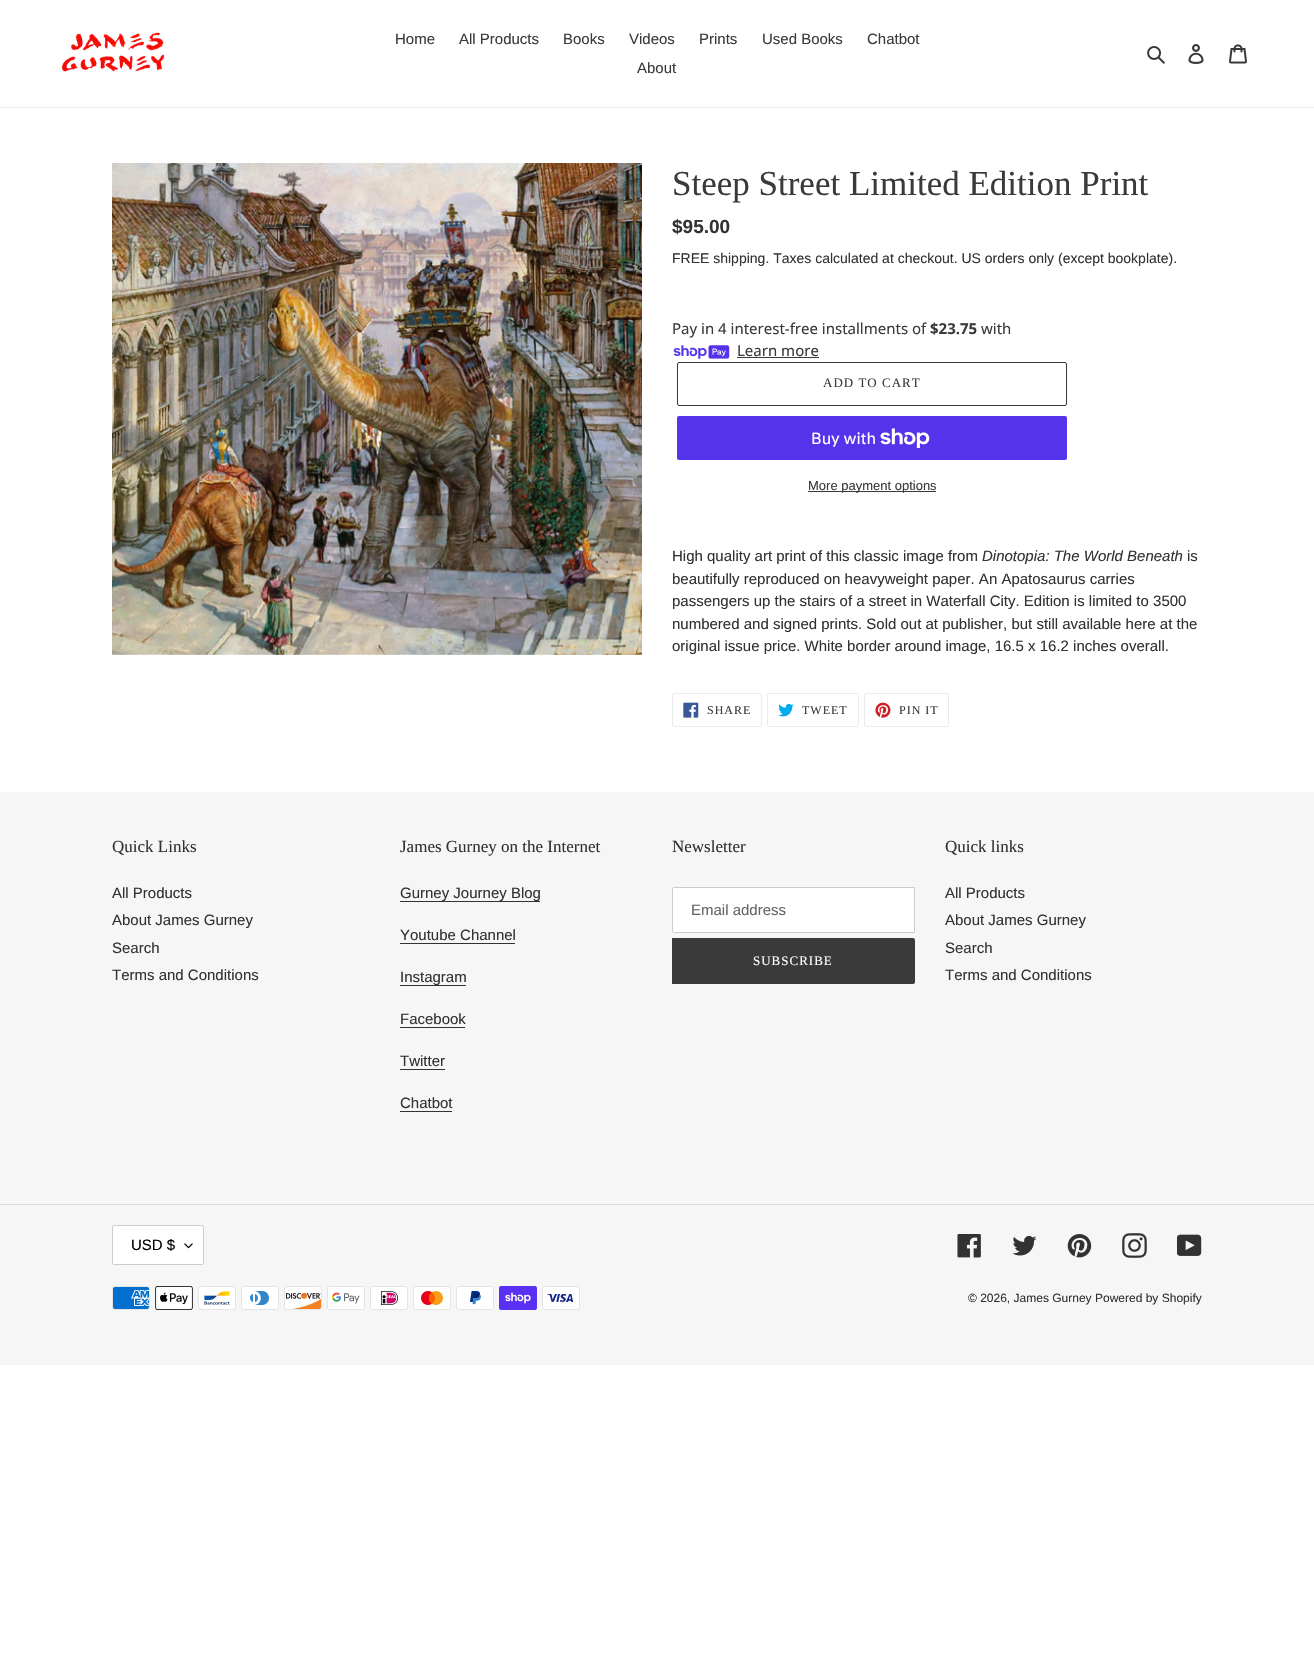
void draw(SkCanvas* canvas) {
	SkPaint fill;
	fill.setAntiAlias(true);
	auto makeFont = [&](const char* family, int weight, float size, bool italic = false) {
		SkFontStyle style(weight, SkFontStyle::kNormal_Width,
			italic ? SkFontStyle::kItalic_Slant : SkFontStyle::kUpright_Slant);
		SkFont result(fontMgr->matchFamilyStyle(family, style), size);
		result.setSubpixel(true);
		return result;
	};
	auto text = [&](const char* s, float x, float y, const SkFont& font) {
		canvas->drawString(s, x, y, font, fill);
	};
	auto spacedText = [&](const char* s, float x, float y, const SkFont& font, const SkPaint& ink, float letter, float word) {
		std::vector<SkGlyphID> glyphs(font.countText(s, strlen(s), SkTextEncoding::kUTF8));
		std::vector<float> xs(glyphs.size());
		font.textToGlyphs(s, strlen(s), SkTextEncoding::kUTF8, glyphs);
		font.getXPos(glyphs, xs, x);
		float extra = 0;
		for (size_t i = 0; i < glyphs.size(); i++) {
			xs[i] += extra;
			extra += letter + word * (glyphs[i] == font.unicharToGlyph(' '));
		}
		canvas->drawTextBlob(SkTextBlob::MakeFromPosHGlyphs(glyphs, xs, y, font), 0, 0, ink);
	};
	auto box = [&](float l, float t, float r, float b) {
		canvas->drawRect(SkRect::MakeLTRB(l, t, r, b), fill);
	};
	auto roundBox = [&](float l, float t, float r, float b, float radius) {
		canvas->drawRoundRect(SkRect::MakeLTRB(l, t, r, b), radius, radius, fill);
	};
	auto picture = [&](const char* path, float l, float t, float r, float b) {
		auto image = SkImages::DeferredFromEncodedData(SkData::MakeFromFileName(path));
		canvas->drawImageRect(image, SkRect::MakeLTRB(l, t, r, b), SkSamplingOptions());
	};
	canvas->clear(0xFFFFFFFF);
	fill.setColor(0xFFEBEBEB);
	box(0, 107, 1314, 108);
	picture("image0.png", 61, 32, 165, 72);
	picture("image1.png", 1147, 46, 1165, 64);
	picture("image2.png", 1188, 44, 1204, 64);
	picture("image3.png", 1229, 44, 1247, 64);
	picture("image4.png", 112, 163, 642, 655);
	picture("image5.png", 673, 345, 730, 359);
	fill.setColor(0xFF3A3A3A);
	box(737, 357, 819, 358);
	fill.setStyle(SkPaint::kStroke_Style);
	fill.setStrokeWidth(1);
	canvas->drawRoundRect(SkRect::MakeLTRB(677.5f, 362.5f, 1066.5f, 405.5f), 1.5f, 1.5f, fill);
	fill.setStyle(SkPaint::kFill_Style);
	fill.setColor(0xFF5433EB);
	roundBox(677, 416, 1067, 460, 2);
	picture("image6.png", 880, 428, 930, 448);
	fill.setColor(0xFF3A3A3A);
	box(808, 491, 936, 492);
	fill.setStyle(SkPaint::kStroke_Style);
	fill.setColor(0xFFEBEBEB);
	canvas->drawRoundRect(SkRect::MakeLTRB(672.5f, 693.5f, 761.5f, 726.5f), 1.5f, 1.5f, fill);
	picture("image7.png", 683, 702, 699, 718);
	canvas->drawRoundRect(SkRect::MakeLTRB(767.5f, 693.5f, 858.5f, 726.5f), 1.5f, 1.5f, fill);
	picture("image8.png", 778, 703, 794, 717);
	canvas->drawRoundRect(SkRect::MakeLTRB(864.5f, 693.5f, 948.5f, 726.5f), 1.5f, 1.5f, fill);
	picture("image9.png", 875, 702, 891, 718);
	fill.setStyle(SkPaint::kFill_Style);
	fill.setColor(0xFFF6F6F6);
	box(0, 792, 1314, 1365);
	fill.setColor(0xFF333232);
	box(400, 901, 540, 902);
	box(400, 943, 515, 944);
	box(400, 985, 466, 986);
	box(400, 1027, 465, 1028);
	box(400, 1069, 445, 1070);
	box(400, 1111, 452, 1112);
	fill.setColor(0xFFFFFFFF);
	canvas->drawPath(SkPathBuilder().moveTo(674, 887.5f).lineTo(914.5f, 887.5f).lineTo(914.5f, 932.5f).lineTo(674, 932.5f).cubicTo(673, 932.5f, 672.5f, 932, 672.5f, 931).lineTo(672.5f, 889).cubicTo(672.5f, 888, 673, 887.5f, 674, 887.5f).close().detach(), fill);
	fill.setStyle(SkPaint::kStroke_Style);
	fill.setColor(0xFFCCCCCC);
	canvas->drawPath(SkPathBuilder().moveTo(674, 887.5f).lineTo(914.5f, 887.5f).lineTo(914.5f, 932.5f).lineTo(674, 932.5f).cubicTo(673, 932.5f, 672.5f, 932, 672.5f, 931).lineTo(672.5f, 889).cubicTo(672.5f, 888, 673, 887.5f, 674, 887.5f).close().detach(), fill);
	fill.setStyle(SkPaint::kFill_Style);
	fill.setColor(0xFF3A3A3A);
	canvas->drawPath(SkPathBuilder().moveTo(672, 938).lineTo(913, 938).cubicTo(914, 938, 915, 939, 915, 940).lineTo(915, 982).cubicTo(915, 983, 914, 984, 913, 984).lineTo(672, 984).close().detach(), fill);
	fill.setColor(0xFFDDDDDD);
	box(0, 1204, 1314, 1205);
	fill.setColor(0xFFFFFFFF);
	roundBox(112, 1225, 204, 1265, 2);
	picture("image10.png", 184, 1243, 193, 1249);
	fill.setStyle(SkPaint::kStroke_Style);
	fill.setColor(0xFFCCCCCC);
	canvas->drawRoundRect(SkRect::MakeLTRB(112.5f, 1225.5f, 203.5f, 1264.5f), 1.5f, 1.5f, fill);
	picture("image11.png", 957, 1234, 981, 1258);
	picture("image12.png", 1012, 1236, 1037, 1256);
	picture("image13.png", 1067, 1234, 1092, 1258);
	picture("image14.png", 1122, 1233, 1147, 1258);
	picture("image15.png", 1177, 1234, 1202, 1256);
	picture("image16.png", 112, 1286, 150, 1310);
	picture("image17.png", 155, 1286, 193, 1310);
	picture("image18.png", 198, 1286, 236, 1310);
	picture("image19.png", 241, 1286, 279, 1310);
	picture("image20.png", 284, 1286, 322, 1310);
	picture("image21.png", 327, 1286, 365, 1310);
	picture("image22.png", 370, 1286, 408, 1310);
	picture("image23.png", 413, 1286, 451, 1310);
	picture("image24.png", 456, 1286, 494, 1310);
	picture("image25.png", 499, 1286, 537, 1310);
	picture("image26.png", 542, 1286, 580, 1310);
	auto font1 = makeFont("Liberation Sans", 400, 15);
	fill.setStyle(SkPaint::kFill_Style);
	fill.setColor(0xFF3A3A3A);
	text("Home", 395, 44, font1);
	text("All Products", 459, 44, font1);
	text("Books", 563, 44, font1);
	text("Videos", 629, 44, font1);
	text("Prints", 699, 44, font1);
	text("Used Books", 762, 44, font1);
	text("Chatbot", 867, 44, font1);
	text("About", 637, 73, font1);
	auto font2 = makeFont("Liberation Serif", 400, 35);
	text("Steep Street Limited Edition Print", 672, 195, font2);
	auto font3 = makeFont("Liberation Sans", 700, 19);
	fill.setColor(0xFF333232);
	text("$95.00", 672, 233, font3);
	auto font4 = makeFont("Liberation Sans", 400, 14);
	text("FREE shipping. Taxes calculated at checkout. US orders only (except bookplate).", 672, 263, font4);
	auto font5 = makeFont("Noto Sans", 400, 15);
	fill.setColor(0xFF3A3A3A);
	text("Pay in 4 interest-free installments of", 672, 334, font5);
	auto font6 = makeFont("Noto Sans", 700, 15);
	text("$23.75", 930, 334, font6);
	text("with", 981, 334, font5);
	text("Learn more", 737, 356, font5);
	auto font7 = makeFont("Liberation Serif", 400, 13);
	spacedText("ADD TO CART", 823, 387, font7, fill, 1, 0);
	auto font8 = makeFont("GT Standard", 400, 16);
	fill.setColor(0xFFFFFFFF);
	text("Buy with", 811, 444, font8);
	auto font9 = makeFont("Liberation Sans", 400, 13);
	fill.setColor(0xFF3A3A3A);
	text("More payment options", 808, 490, font9);
	fill.setColor(0xFF333232);
	text("High quality art print of this classic image from", 672, 561, font1);
	auto font10 = makeFont("Liberation Sans", 400, 15, true);
	text("Dinotopia: The World Beneath", 982, 561, font10);
	text("is", 1187, 561, font1);
	text("beautifully reproduced on heavyweight paper. An Apatosaurus carries", 672, 584, font1);
	text("passengers up the stairs of a street in Waterfall City. Edition is limited to 3500", 672, 606, font1);
	text("numbered and signed prints. Sold out at publisher, but still available here at the", 672, 629, font1);
	text("original issue price. White border around image, 16.5 x 16.2 inches overall.", 672, 651, font1);
	auto font11 = makeFont("Liberation Serif", 400, 12);
	fill.setColor(0xFF3A3A3A);
	spacedText("SHARE", 707, 714, font11, fill, 1, 0);
	spacedText("TWEET", 802, 714, font11, fill, 1, 0);
	spacedText("PIN IT", 899, 714, font11, fill, 1, 0);
	auto font12 = makeFont("Liberation Serif", 400, 17);
	fill.setColor(0xFF333232);
	text("Quick Links", 112, 852, font12);
	text("All Products", 112, 898, font1);
	text("About James Gurney", 112, 925, font1);
	text("Search", 112, 953, font1);
	text("Terms and Conditions", 112, 980, font1);
	text("James Gurney on the Internet", 400, 852, font12);
	text("Gurney Journey Blog", 400, 898, font1);
	text("Youtube Channel", 400, 940, font1);
	text("Instagram", 400, 982, font1);
	text("Facebook", 400, 1024, font1);
	text("Twitter", 400, 1066, font1);
	text("Chatbot", 400, 1108, font1);
	text("Newsletter", 672, 852, font12);
	fill.setColor(0xFF666666);
	text("Email address", 691, 915, font1);
	fill.setColor(0xFFFFFFFF);
	spacedText("SUBSCRIBE", 753, 965, font7, fill, 1, 0);
	fill.setColor(0xFF333232);
	text("Quick links", 945, 852, font12);
	text("All Products", 945, 898, font1);
	text("About James Gurney", 945, 925, font1);
	text("Search", 945, 953, font1);
	text("Terms and Conditions", 945, 980, font1);
	fill.setColor(0xFF000000);
	text("USD $", 131, 1250, font1);
	auto font13 = makeFont("Liberation Sans", 400, 12);
	fill.setColor(0xFF333232);
	text("© 2026, James Gurney", 968, 1302, font13);
	text("Powered by Shopify", 1095, 1302, font13);
}
